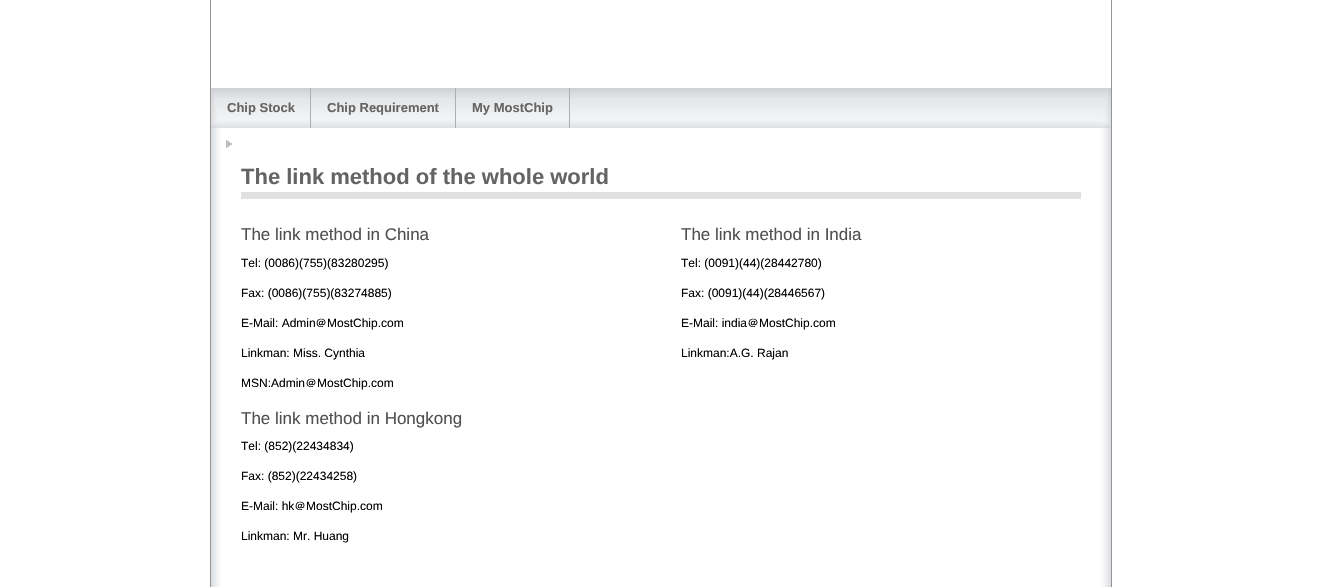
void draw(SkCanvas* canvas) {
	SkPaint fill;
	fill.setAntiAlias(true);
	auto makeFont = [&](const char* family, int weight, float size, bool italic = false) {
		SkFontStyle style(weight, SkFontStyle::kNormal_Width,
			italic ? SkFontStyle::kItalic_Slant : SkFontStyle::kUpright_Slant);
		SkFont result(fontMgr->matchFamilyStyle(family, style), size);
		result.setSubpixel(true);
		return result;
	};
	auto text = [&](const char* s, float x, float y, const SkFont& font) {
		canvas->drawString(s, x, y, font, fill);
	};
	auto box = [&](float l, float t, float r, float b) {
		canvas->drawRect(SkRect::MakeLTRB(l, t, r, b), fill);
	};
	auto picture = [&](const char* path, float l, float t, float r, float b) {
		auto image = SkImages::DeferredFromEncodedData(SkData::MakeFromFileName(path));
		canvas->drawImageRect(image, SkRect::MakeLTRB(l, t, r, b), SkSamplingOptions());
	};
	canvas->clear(0xFFFFFFFF);
	fill.setStyle(SkPaint::kStroke_Style);
	fill.setStrokeWidth(1);
	fill.setColor(0xFF969696);
	canvas->drawRect(SkRect::MakeLTRB(210.5f, -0.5f, 1111.5f, 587.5f), fill);
	picture("image0.png", 211, 88, 1111, 128);
	fill.setStyle(SkPaint::kFill_Style);
	fill.setColor(0xFFAFAFAF);
	box(310, 88, 311, 128);
	box(455, 88, 456, 128);
	box(569, 88, 570, 128);
	picture("image1.png", 211, 128, 1111, 164);
	picture("image2.png", 226, 140, 232, 148);
	picture("image3.png", 211, 164, 1111, 587);
	fill.setColor(0xFFE1E1E1);
	box(241, 192, 1081, 199);
	auto font1 = makeFont("Liberation Sans", 700, 13);
	fill.setColor(0xFF646464);
	text("Chip Stock", 227, 112, font1);
	text("Chip Requirement", 327, 112, font1);
	text("My MostChip", 472, 112, font1);
	auto font2 = makeFont("Liberation Sans", 700, 22);
	text("The link method of the whole world", 241, 184, font2);
	auto font3 = makeFont("Liberation Sans", 400, 17);
	fill.setColor(0xFF505050);
	text("The link method in China", 241, 240, font3);
	auto font4 = makeFont("Liberation Sans", 400, 12);
	fill.setColor(0xFF000000);
	text("Tel: (0086)(755)(83280295)", 241, 267, font4);
	text("Fax: (0086)(755)(83274885)", 241, 297, font4);
	text("E-Mail: Admin", 241, 327, font4);
	auto font5 = makeFont("WenQuanYi Zen Hei", 500, 12);
	text("＠", 315, 327, font5);
	text("MostChip.com", 327, 327, font4);
	text("Linkman: Miss. Cynthia", 241, 357, font4);
	text("MSN:Admin", 241, 387, font4);
	text("＠", 305, 387, font5);
	text("MostChip.com", 317, 387, font4);
	fill.setColor(0xFF505050);
	text("The link method in Hongkong", 241, 424, font3);
	fill.setColor(0xFF000000);
	text("Tel: (852)(22434834)", 241, 450, font4);
	text("Fax: (852)(22434258)", 241, 480, font4);
	text("E-Mail: hk", 241, 510, font4);
	text("＠", 294, 510, font5);
	text("MostChip.com", 306, 510, font4);
	text("Linkman: Mr. Huang", 241, 540, font4);
	fill.setColor(0xFF505050);
	text("The link method in India", 681, 240, font3);
	fill.setColor(0xFF000000);
	text("Tel: (0091)(44)(28442780)", 681, 267, font4);
	text("Fax: (0091)(44)(28446567)", 681, 297, font4);
	text("E-Mail: india", 681, 327, font4);
	text("＠", 747, 327, font5);
	text("MostChip.com", 759, 327, font4);
	text("Linkman:A.G. Rajan", 681, 357, font4);
}
